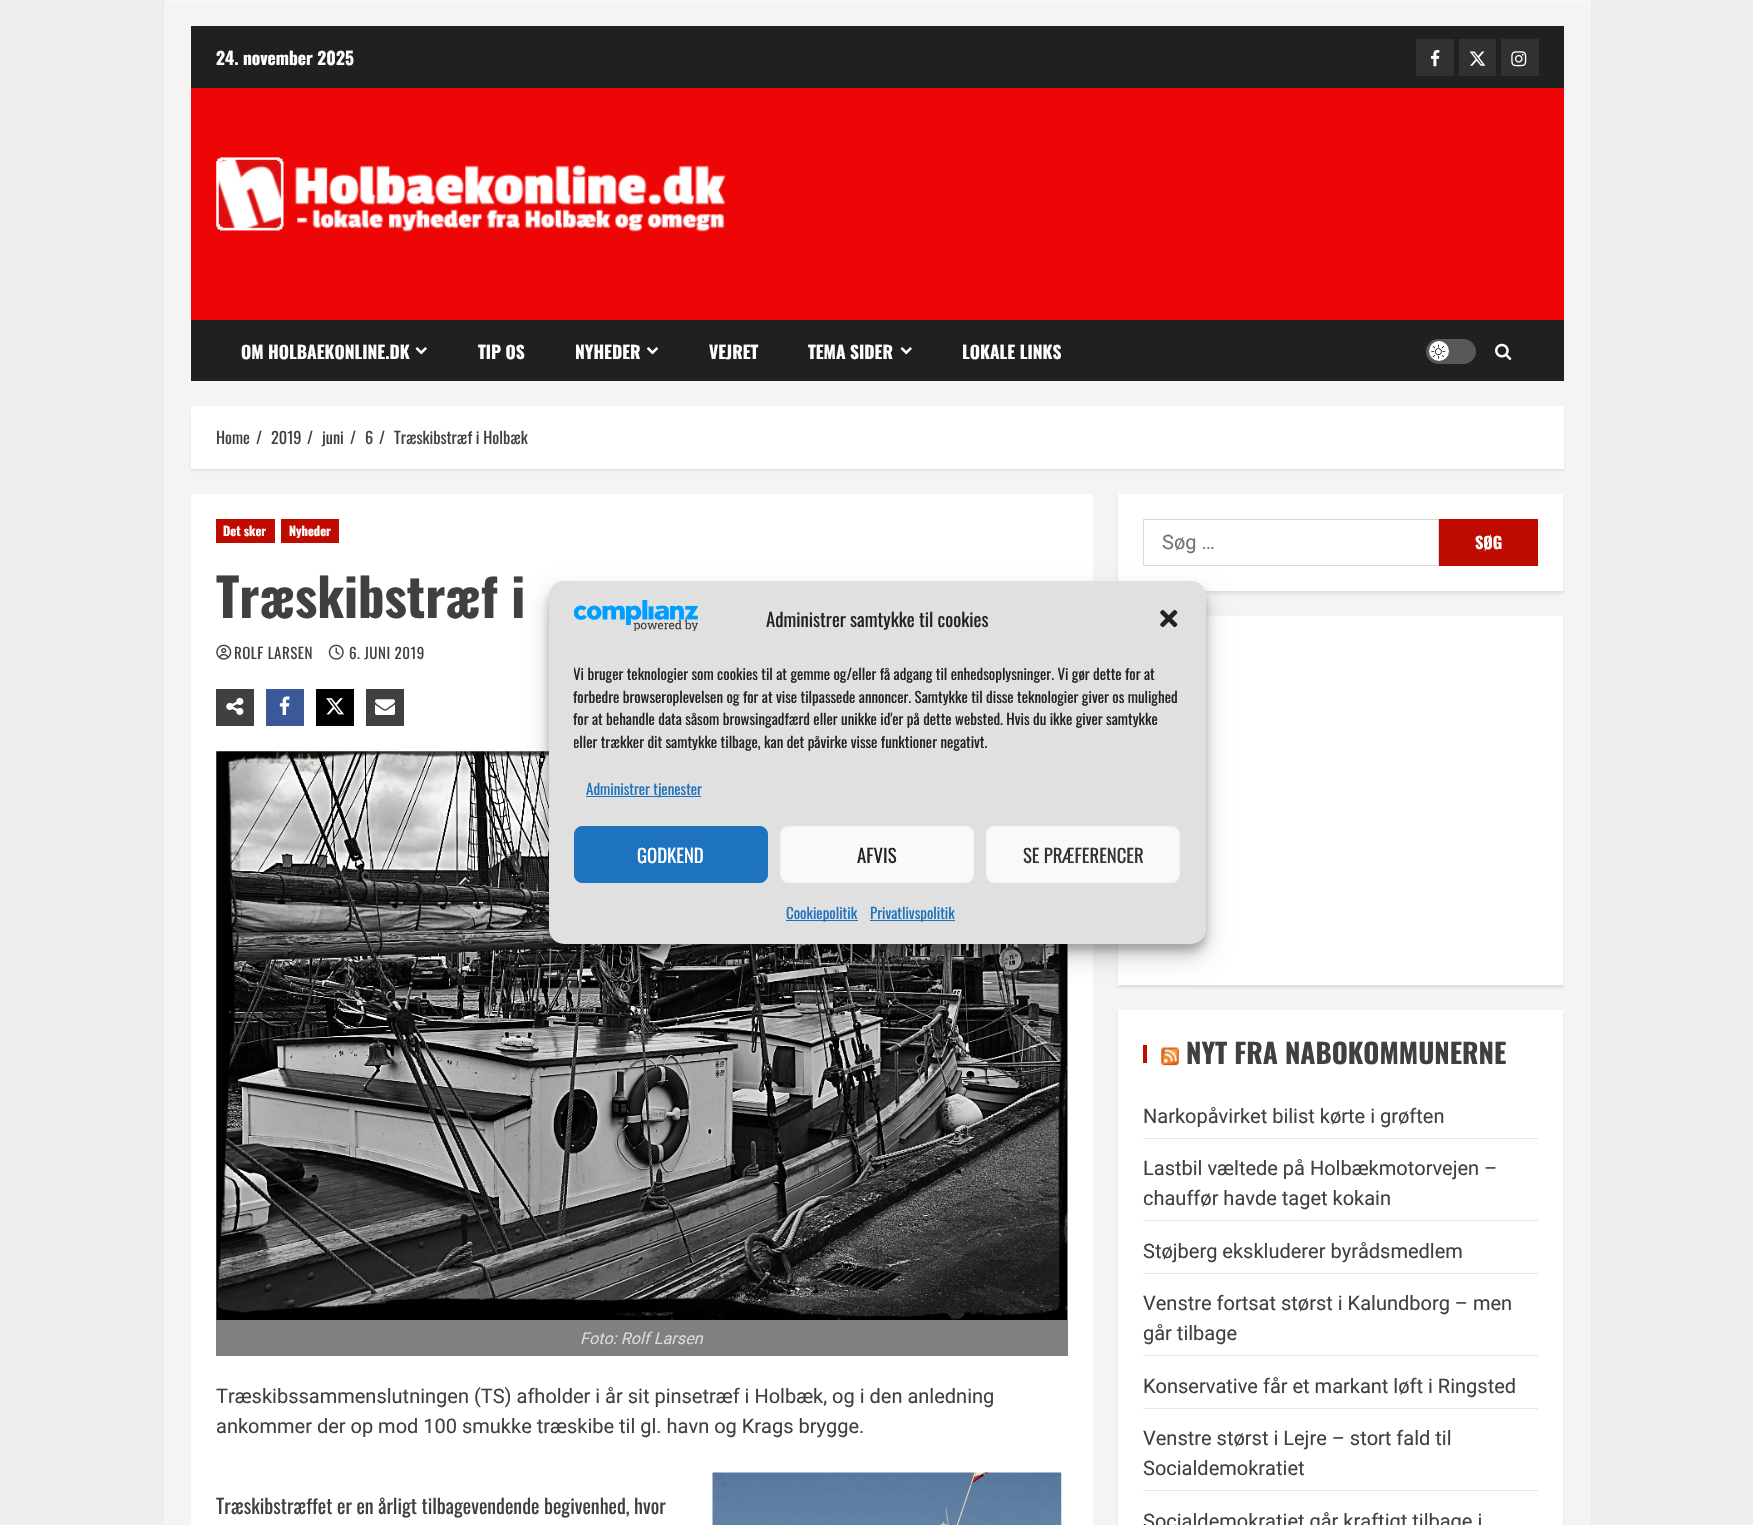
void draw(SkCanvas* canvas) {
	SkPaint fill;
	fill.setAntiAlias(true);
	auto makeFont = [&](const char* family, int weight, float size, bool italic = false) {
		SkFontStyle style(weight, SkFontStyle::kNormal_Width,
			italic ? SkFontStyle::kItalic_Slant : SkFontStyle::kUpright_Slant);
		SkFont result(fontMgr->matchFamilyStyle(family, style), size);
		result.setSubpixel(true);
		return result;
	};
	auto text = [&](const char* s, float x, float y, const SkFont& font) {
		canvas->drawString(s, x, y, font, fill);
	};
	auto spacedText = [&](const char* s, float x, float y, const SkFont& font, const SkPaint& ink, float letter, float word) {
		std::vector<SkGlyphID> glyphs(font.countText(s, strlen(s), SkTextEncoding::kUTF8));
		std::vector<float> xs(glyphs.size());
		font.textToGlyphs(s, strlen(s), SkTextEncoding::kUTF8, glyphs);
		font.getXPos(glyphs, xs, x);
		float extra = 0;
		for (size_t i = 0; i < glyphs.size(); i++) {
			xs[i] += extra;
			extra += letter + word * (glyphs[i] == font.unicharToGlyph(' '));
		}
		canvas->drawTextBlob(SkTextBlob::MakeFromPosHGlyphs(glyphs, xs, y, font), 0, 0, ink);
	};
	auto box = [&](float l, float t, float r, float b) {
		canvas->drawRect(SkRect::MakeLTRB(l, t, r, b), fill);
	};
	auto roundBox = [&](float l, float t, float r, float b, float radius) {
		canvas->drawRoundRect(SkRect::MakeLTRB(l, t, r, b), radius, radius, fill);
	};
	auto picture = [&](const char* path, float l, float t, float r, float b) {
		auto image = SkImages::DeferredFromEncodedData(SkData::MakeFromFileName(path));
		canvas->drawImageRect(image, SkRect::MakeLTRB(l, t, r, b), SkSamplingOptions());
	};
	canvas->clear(0xFFEEEEEE);
	fill.setColor(0xFFF4F4F4);
	canvas->drawRect(SkRect::MakeLTRB(165.5f, 0.5f, 1589.5f, 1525.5f), fill);
	fill.setStyle(SkPaint::kStroke_Style);
	fill.setStrokeWidth(1);
	fill.setColor(0xFFFAFAFA);
	canvas->drawRect(SkRect::MakeLTRB(165.5f, 0.5f, 1589.5f, 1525.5f), fill);
	fill.setStyle(SkPaint::kFill_Style);
	fill.setColor(0xFF202020);
	box(191, 26, 1564, 88);
	fill.setColor(0xFF313131);
	box(1416, 39, 1454, 76);
	picture("image0.png", 1430, 50, 1440, 67);
	box(1459, 39, 1496, 76);
	picture("image1.png", 1469, 51, 1486, 66);
	box(1501, 39, 1539, 76);
	picture("image2.png", 1511, 51, 1527, 67);
	fill.setColor(0xFFEE0606);
	box(191, 88, 1564, 320);
	picture("image3.png", 216, 157, 726, 232);
	fill.setColor(0xFF202020);
	box(191, 320, 1564, 381);
	picture("image4.png", 415, 347, 427, 355);
	picture("image5.png", 646, 347, 659, 355);
	picture("image4.png", 900, 347, 912, 355);
	fill.setColor(0xFF585858);
	roundBox(1426, 339, 1476, 364, 12.5f);
	fill.setColor(0xFFFFFFFF);
	canvas->drawCircle(1439, 351, 10, fill);
	picture("image6.png", 1431, 344, 1446, 359);
	picture("image7.png", 1495, 343, 1512, 360);
	fill.setColor(0x14000000);
	fill.setMaskFilter(SkMaskFilter::MakeBlur(kNormal_SkBlurStyle, 1));
	canvas->drawRect(SkRect::MakeLTRB(191, 409, 1564, 471), fill);
	fill.setMaskFilter(nullptr);
	fill.setColor(0xFFFFFFFF);
	box(191, 406, 1564, 469);
	box(191, 494, 1093, 1525);
	fill.setColor(0xFFC00C00);
	box(216, 519, 275, 543);
	box(281, 519, 339, 543);
	picture("image8.png", 216, 644, 232, 660);
	picture("image9.png", 328, 644, 344, 660);
	fill.setColor(0xFF404040);
	box(216, 689, 254, 726);
	picture("image10.png", 226, 697, 244, 715);
	fill.setColor(0xFF3B5999);
	box(266, 689, 304, 726);
	picture("image11.png", 279, 696, 290, 715);
	fill.setColor(0xFF000000);
	box(316, 689, 354, 726);
	picture("image12.png", 326, 698, 344, 715);
	fill.setColor(0xFF404040);
	box(366, 689, 404, 726);
	picture("image13.png", 375, 699, 395, 715);
	picture("image14.png", 216, 751, 1068, 1320);
	fill.setColor(0xFF808080);
	box(216, 1320, 1068, 1356);
	picture("image15.png", 712, 1472, 1062, 1525);
	fill.setColor(0x14000000);
	fill.setMaskFilter(SkMaskFilter::MakeBlur(kNormal_SkBlurStyle, 1));
	canvas->drawRect(SkRect::MakeLTRB(1118, 496, 1563, 594), fill);
	fill.setMaskFilter(nullptr);
	fill.setColor(0xFFFFFFFF);
	box(1118, 494, 1563, 591);
	fill.setStyle(SkPaint::kStroke_Style);
	fill.setColor(0xFFD9D9D9);
	canvas->drawRect(SkRect::MakeLTRB(1143.5f, 519.5f, 1438.5f, 565.5f), fill);
	fill.setStyle(SkPaint::kFill_Style);
	fill.setColor(0xFFC00C00);
	box(1439, 519, 1538, 566);
	fill.setColor(0x14000000);
	fill.setMaskFilter(SkMaskFilter::MakeBlur(kNormal_SkBlurStyle, 1));
	canvas->drawRect(SkRect::MakeLTRB(1118, 619, 1563, 988), fill);
	fill.setMaskFilter(nullptr);
	fill.setColor(0xFFFFFFFF);
	box(1118, 616, 1563, 985);
	fill.setColor(0x14000000);
	fill.setMaskFilter(SkMaskFilter::MakeBlur(kNormal_SkBlurStyle, 1));
	canvas->drawRect(SkRect::MakeLTRB(1118, 1013, 1563, 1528), fill);
	fill.setMaskFilter(nullptr);
	fill.setColor(0xFFFFFFFF);
	box(1118, 1010, 1563, 1525);
	fill.setColor(0xFFC00C00);
	box(1143, 1045, 1147, 1063);
	picture("image16.png", 1161, 1047, 1179, 1066);
	fill.setColor(0xFFE6E6E6);
	box(1143, 1138, 1538, 1139);
	box(1143, 1220, 1538, 1221);
	box(1143, 1273, 1538, 1274);
	box(1143, 1355, 1538, 1356);
	box(1143, 1408, 1538, 1409);
	box(1143, 1490, 1538, 1491);
	fill.setColor(0x3B000000);
	fill.setMaskFilter(SkMaskFilter::MakeBlur(kNormal_SkBlurStyle, 4));
	canvas->drawRoundRect(SkRect::MakeLTRB(549, 589, 1206, 951), 15, 15, fill);
	fill.setMaskFilter(nullptr);
	fill.setColor(0x30000000);
	fill.setMaskFilter(SkMaskFilter::MakeBlur(kNormal_SkBlurStyle, 12.5f));
	canvas->drawRoundRect(SkRect::MakeLTRB(549, 594, 1206, 956), 15, 15, fill);
	fill.setMaskFilter(nullptr);
	fill.setColor(0xFFE0E0E0);
	roundBox(549, 581, 1206, 944, 15);
	picture("image17.png", 574, 600, 698, 631);
	picture("image18.png", 1160, 610, 1178, 628);
	fill.setColor(0xFF1E73BE);
	box(586, 796, 701, 797);
	canvas->drawRoundRect(SkRect::MakeLTRB(574.5f, 826.5f, 767.5f, 882.5f), 7.5f, 7.5f, fill);
	fill.setStyle(SkPaint::kStroke_Style);
	canvas->drawRoundRect(SkRect::MakeLTRB(574.5f, 826.5f, 767.5f, 882.5f), 7.5f, 7.5f, fill);
	fill.setStyle(SkPaint::kFill_Style);
	fill.setColor(0xFFF9F9F9);
	canvas->drawRoundRect(SkRect::MakeLTRB(780.5f, 826.5f, 973.5f, 882.5f), 7.5f, 7.5f, fill);
	fill.setStyle(SkPaint::kStroke_Style);
	fill.setColor(0xFFF2F2F2);
	canvas->drawRoundRect(SkRect::MakeLTRB(780.5f, 826.5f, 973.5f, 882.5f), 7.5f, 7.5f, fill);
	fill.setStyle(SkPaint::kFill_Style);
	fill.setColor(0xFFF9F9F9);
	canvas->drawRoundRect(SkRect::MakeLTRB(986.5f, 826.5f, 1179.5f, 882.5f), 7.5f, 7.5f, fill);
	fill.setStyle(SkPaint::kStroke_Style);
	fill.setColor(0xFFF2F2F2);
	canvas->drawRoundRect(SkRect::MakeLTRB(986.5f, 826.5f, 1179.5f, 882.5f), 7.5f, 7.5f, fill);
	fill.setStyle(SkPaint::kFill_Style);
	fill.setColor(0xFF1E73BE);
	box(786, 920, 858, 921);
	box(870, 920, 955, 921);
	auto font1 = makeFont("Oswald", 700, 17.5f);
	fill.setColor(0xFFFFFFFF);
	text("24. november 2025", 216, 65, font1);
	text("OM HOLBAEKONLINE.DK", 241, 359, font1);
	text("TIP OS", 478, 359, font1);
	text("NYHEDER", 575, 359, font1);
	text("VEJRET", 709, 359, font1);
	text("TEMA SIDER", 808, 359, font1);
	text("LOKALE LINKS", 962, 359, font1);
	auto font2 = makeFont("Oswald", 400, 16.25f);
	fill.setColor(0xFF404040);
	text("Home", 216, 444, font2);
	text("/", 256, 444, font2);
	text("2019", 271, 444, font2);
	text("/", 307, 444, font2);
	text("juni", 322, 444, font2);
	text("/", 350, 444, font2);
	text("6", 365, 444, font2);
	text("/", 379, 444, font2);
	text("Træskibstræf i Holbæk", 394, 444, font2);
	auto font3 = makeFont("Oswald", 700, 12.5f);
	fill.setColor(0xFFFFFFFF);
	text("Det sker", 223, 536, font3);
	text("Nyheder", 289, 536, font3);
	auto font4 = makeFont("Oswald", 700, 52.5f);
	fill.setColor(0xFF404040);
	text("Træskibstræf i", 216, 618, font4);
	auto font5 = makeFont("Oswald", 400, 15);
	spacedText("ROLF LARSEN", 234, 659, font5, fill, 0.5f, 0);
	spacedText("6. JUNI 2019", 349, 659, font5, fill, 0.5f, 0);
	auto font6 = makeFont("Roboto", 400, 16.25f, true);
	fill.setColor(0xFFD9D9D9);
	text("Foto: Rolf Larsen", 580, 1344, font6);
	auto font7 = makeFont("Roboto", 400, 20);
	fill.setColor(0xFF404040);
	text("Træskibssammenslutningen (TS) afholder i år sit pinsetræf i Holbæk, og i den anledning", 216, 1403, font7);
	text("ankommer der op mod 100 smukke træskibe til gl. havn og Krags brygge.", 216, 1433, font7);
	auto font8 = makeFont("Oswald", 400, 20);
	text("Træskibstræffet er en årligt tilbagevendende begivenhed, hvor", 216, 1514, font8);
	fill.setColor(0xFF757575);
	text("Søg …", 1162, 549, font7);
	auto font9 = makeFont("Oswald", 700, 16.25f);
	fill.setColor(0xFFFFFFFF);
	text("SØG", 1475, 549, font9);
	auto font10 = makeFont("Oswald", 700, 27.5f);
	fill.setColor(0xFF404040);
	text("NYT FRA NABOKOMMUNERNE", 1186, 1064, font10);
	text("Narkopåvirket bilist kørte i grøften", 1143, 1123, font7);
	text("Lastbil væltede på Holbækmotorvejen –", 1143, 1175, font7);
	text("chauffør havde taget kokain", 1143, 1205, font7);
	text("Støjberg ekskluderer byrådsmedlem", 1143, 1258, font7);
	text("Venstre fortsat størst i Kalundborg – men", 1143, 1310, font7);
	text("går tilbage", 1143, 1340, font7);
	text("Konservative får et markant løft i Ringsted", 1143, 1393, font7);
	text("Venstre størst i Lejre – stort fald til", 1143, 1445, font7);
	text("Socialdemokratiet", 1143, 1475, font7);
	text("Socialdemokratiet går kraftigt tilbage i", 1143, 1528, font7);
	auto font11 = makeFont("Oswald", 400, 18.75f);
	fill.setColor(0xFF222222);
	text("Administrer samtykke til cookies", 766, 627, font11);
	canvas->save();
	canvas->clipRect(SkRect::MakeLTRB(574, 663, 1181, 759));
	text("Vi bruger teknologier som cookies til at gemme og/eller få adgang til enhedsoplysninger. Vi gør dette for at", 573, 680, font5);
	canvas->restore();
	text("forbedre browseroplevelsen og for at vise tilpassede annoncer. Samtykke til disse teknologier giver os mulighed", 573, 703, font5);
	text("for at behandle data såsom browsingadfærd eller unikke id'er på dette websted. Hvis du ikke giver samtykke", 573, 725, font5);
	canvas->save();
	canvas->clipRect(SkRect::MakeLTRB(574, 663, 1181, 759));
	text("eller trækker dit samtykke tilbage, kan det påvirke visse funktioner negativt.", 573, 748, font5);
	canvas->restore();
	fill.setColor(0xFF1E73BE);
	text("Administrer tjenester", 586, 795, font5);
	fill.setColor(0xFFFFFFFF);
	text("GODKEND", 637, 863, font11);
	fill.setColor(0xFF222222);
	text("AFVIS", 857, 863, font11);
	fill.setColor(0xFF333333);
	text("SE PRÆFERENCER", 1023, 863, font11);
	fill.setColor(0xFF1E73BE);
	text("Cookiepolitik", 786, 919, font5);
	text("Privatlivspolitik", 870, 919, font5);
}
